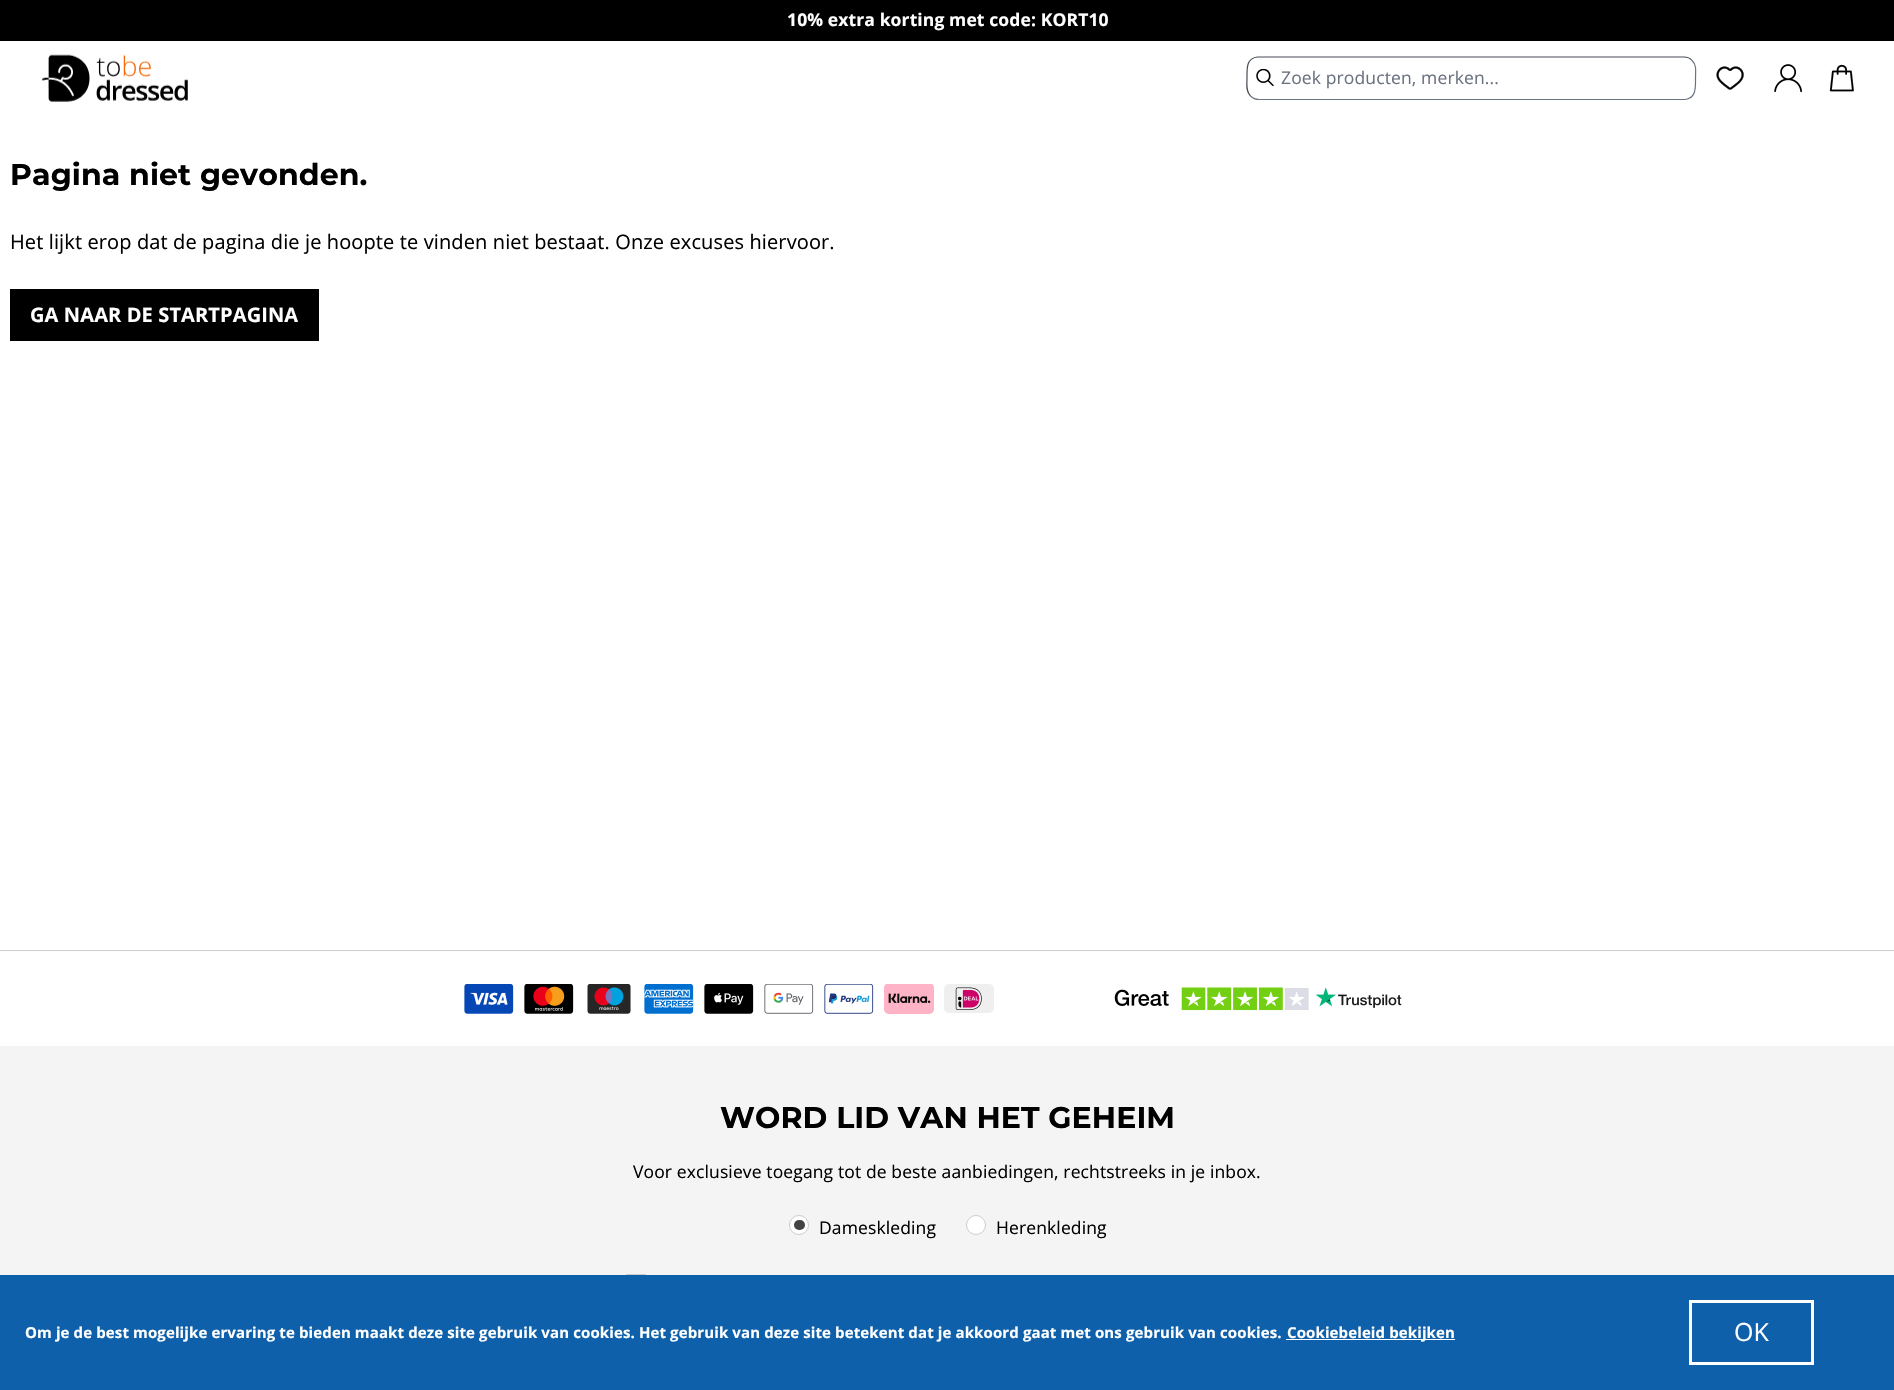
void draw(SkCanvas* canvas) {
	SkPaint fill;
	fill.setAntiAlias(true);
	auto makeFont = [&](const char* family, int weight, float size, bool italic = false) {
		SkFontStyle style(weight, SkFontStyle::kNormal_Width,
			italic ? SkFontStyle::kItalic_Slant : SkFontStyle::kUpright_Slant);
		SkFont result(fontMgr->matchFamilyStyle(family, style), size);
		result.setSubpixel(true);
		return result;
	};
	auto spacedText = [&](const char* s, float x, float y, const SkFont& font, const SkPaint& ink, float letter, float word) {
		std::vector<SkGlyphID> glyphs(font.countText(s, strlen(s), SkTextEncoding::kUTF8));
		std::vector<float> xs(glyphs.size());
		font.textToGlyphs(s, strlen(s), SkTextEncoding::kUTF8, glyphs);
		font.getXPos(glyphs, xs, x);
		float extra = 0;
		for (size_t i = 0; i < glyphs.size(); i++) {
			xs[i] += extra;
			extra += letter + word * (glyphs[i] == font.unicharToGlyph(' '));
		}
		canvas->drawTextBlob(SkTextBlob::MakeFromPosHGlyphs(glyphs, xs, y, font), 0, 0, ink);
	};
	auto box = [&](float l, float t, float r, float b) {
		canvas->drawRect(SkRect::MakeLTRB(l, t, r, b), fill);
	};
	auto roundBox = [&](float l, float t, float r, float b, float radius) {
		canvas->drawRoundRect(SkRect::MakeLTRB(l, t, r, b), radius, radius, fill);
	};
	auto picture = [&](const char* path, float l, float t, float r, float b) {
		auto image = SkImages::DeferredFromEncodedData(SkData::MakeFromFileName(path));
		canvas->drawImageRect(image, SkRect::MakeLTRB(l, t, r, b), SkSamplingOptions());
	};
	canvas->clear(0xFFFFFFFF);
	fill.setColor(0xFF000000);
	box(0, 0, 1894, 41);
	picture("image0.png", 42, 54, 188, 102);
	fill.setStyle(SkPaint::kStroke_Style);
	fill.setStrokeWidth(1.2f);
	fill.setColor(0xFF6B7280);
	canvas->drawPath(SkPathBuilder().moveTo(1692, 60.5f).cubicTo(1697, 65, 1695.5f, 72, 1695.5f, 78).cubicTo(1695.5f, 87, 1696.5f, 98, 1685, 99.5f).lineTo(1259, 99.5f).cubicTo(1255.5f, 99.5f, 1252.5f, 98, 1250.5f, 96).detach(), fill);
	fill.setColor(0xFF474C55);
	canvas->drawPath(SkPathBuilder().moveTo(1250.5f, 96).cubicTo(1245.5f, 91, 1247, 84, 1247, 78).cubicTo(1247, 69.5f, 1246, 58, 1257.5f, 57).lineTo(1684, 57).cubicTo(1687, 57, 1690, 58, 1692, 60.5f).detach(), fill);
	picture("image1.png", 1256, 69, 1274, 86);
	picture("image2.png", 1716, 66, 1744, 90);
	picture("image3.png", 1774, 64, 1802, 93);
	picture("image4.png", 1829, 64, 1854, 92);
	fill.setStyle(SkPaint::kFill_Style);
	fill.setColor(0xFF000000);
	box(10, 289, 319, 341);
	fill.setColor(0xFFCCCCCC);
	box(0, 950, 1894, 951);
	picture("image5.png", 464, 984, 514, 1014);
	picture("image6.png", 524, 984, 574, 1014);
	picture("image7.png", 587, 984, 631, 1014);
	picture("image8.png", 644, 984, 694, 1014);
	picture("image9.png", 704, 984, 754, 1014);
	picture("image10.png", 764, 984, 814, 1014);
	picture("image11.png", 824, 984, 874, 1014);
	picture("image12.png", 884, 984, 934, 1014);
	picture("image13.png", 944, 984, 994, 1013);
	picture("image14.png", 1114, 987, 1402, 1011);
	fill.setColor(0xFFF4F4F4);
	box(0, 1046, 1894, 1275);
	fill.setColor(0xFFFFFFFF);
	canvas->drawCircle(799, 1225, 9.5f, fill);
	fill.setStyle(SkPaint::kStroke_Style);
	fill.setStrokeWidth(1);
	fill.setColor(0xFFCCCCCC);
	canvas->drawCircle(799, 1225, 9.5f, fill);
	fill.setStyle(SkPaint::kFill_Style);
	fill.setColor(0xFF434343);
	roundBox(794, 1220, 805, 1230, 5);
	fill.setColor(0xFFFFFFFF);
	canvas->drawCircle(976, 1225, 9.5f, fill);
	fill.setStyle(SkPaint::kStroke_Style);
	fill.setColor(0xFFCCCCCC);
	canvas->drawCircle(976, 1225, 9.5f, fill);
	canvas->drawRect(SkRect::MakeLTRB(626.5f, 1274.5f, 645.5f, 1293.5f), fill);
	fill.setStyle(SkPaint::kFill_Style);
	fill.setColor(0xFF0E60AA);
	box(0, 1275, 1894, 1390);
	fill.setColor(0xFFFFFFFF);
	box(1286, 1339, 1455, 1340);
	fill.setStyle(SkPaint::kStroke_Style);
	fill.setStrokeWidth(3);
	canvas->drawRect(SkRect::MakeLTRB(1690.5f, 1301.5f, 1812.5f, 1363.5f), fill);
	auto font1 = makeFont("Open Sans", 700, 17.5f);
	fill.setStyle(SkPaint::kFill_Style);
	spacedText("10% extra korting met code: KORT10", 787, 26, font1, fill, 0.12f, 0);
	auto font2 = makeFont("Open Sans", 400, 17.5f);
	fill.setColor(0xFF6B7280);
	spacedText("Zoek producten, merken...", 1281, 84, font2, fill, 0.12f, 0);
	auto font3 = makeFont("Montserrat", 700, 30);
	fill.setColor(0xFF000000);
	spacedText("Pagina niet gevonden.", 10, 185, font3, fill, 0.12f, 0);
	auto font4 = makeFont("Open Sans", 400, 20);
	spacedText("Het lijkt erop dat de pagina die je hoopte te vinden niet bestaat. Onze excuses hiervoor.", 10, 249, font4, fill, 0.12f, 0);
	auto font5 = makeFont("Open Sans", 700, 20);
	fill.setColor(0xFFFFFFFF);
	spacedText("GA NAAR DE STARTPAGINA", 30, 322, font5, fill, 0.12f, 0);
	fill.setColor(0xFF000000);
	spacedText("WORD LID VAN HET GEHEIM", 720, 1128, font3, fill, 0.12f, 0);
	spacedText("Voor exclusieve toegang tot de beste aanbiedingen, rechtstreeks in je inbox.", 633, 1178, font2, fill, 0.12f, 0);
	spacedText("Dameskleding", 819, 1234, font2, fill, 0.12f, 0);
	spacedText("Herenkleding", 996, 1234, font2, fill, 0.12f, 0);
	auto font6 = makeFont("Open Sans", 700, 15);
	fill.setColor(0xFFFFFFFF);
	spacedText("Om je de best mogelijke ervaring te bieden maakt deze site gebruik van cookies. Het gebruik van deze site betekent dat je akkoord gaat met ons gebruik van cookies.", 25, 1338, font6, fill, 0.12f, 0);
	spacedText("Cookiebeleid bekijken", 1287, 1338, font6, fill, 0.12f, 0);
	auto font7 = makeFont("Open Sans", 400, 25);
	spacedText("OK", 1734, 1341, font7, fill, 0.12f, 0);
}
